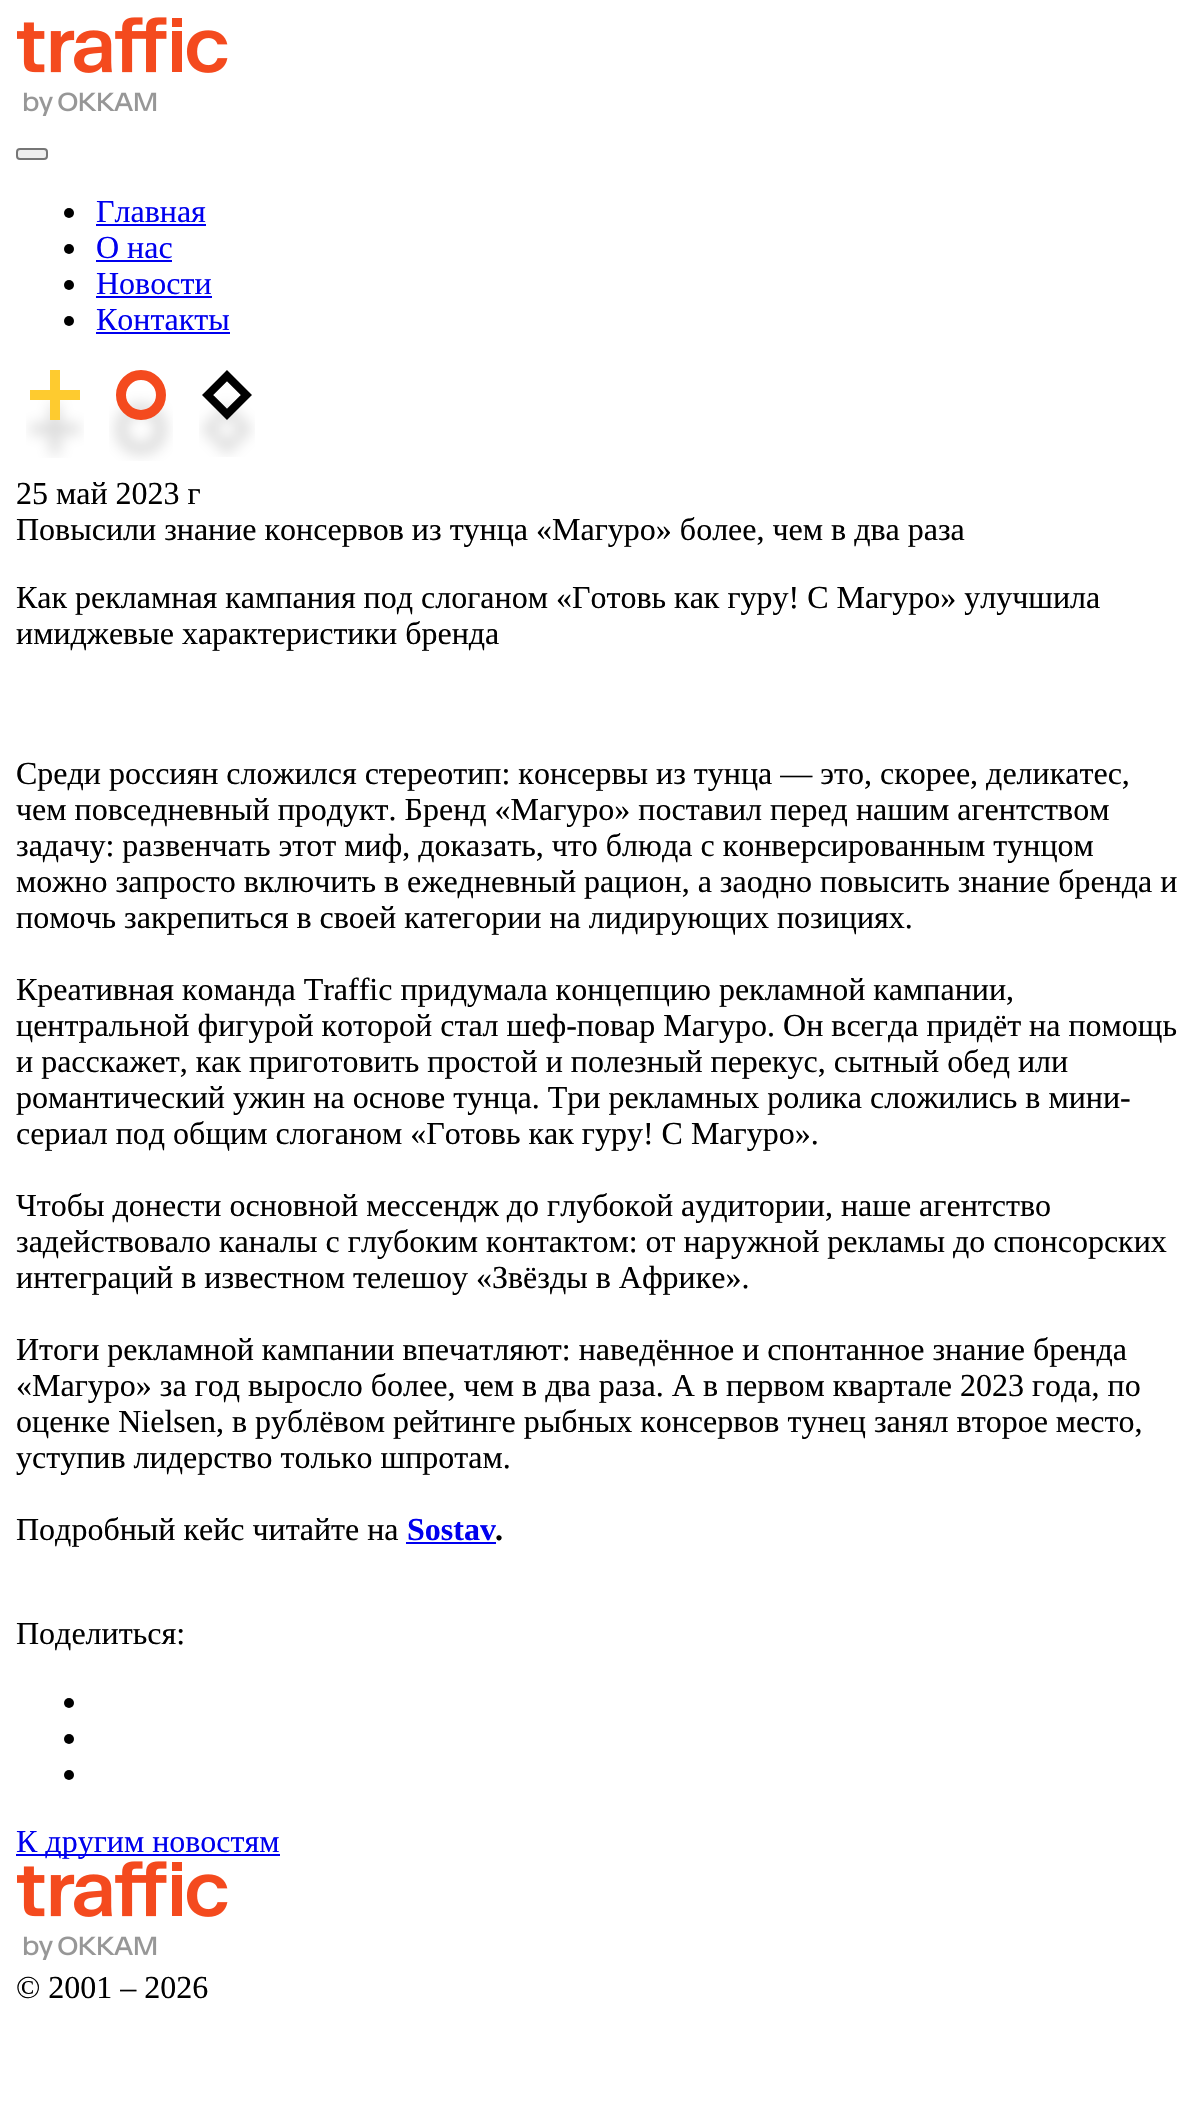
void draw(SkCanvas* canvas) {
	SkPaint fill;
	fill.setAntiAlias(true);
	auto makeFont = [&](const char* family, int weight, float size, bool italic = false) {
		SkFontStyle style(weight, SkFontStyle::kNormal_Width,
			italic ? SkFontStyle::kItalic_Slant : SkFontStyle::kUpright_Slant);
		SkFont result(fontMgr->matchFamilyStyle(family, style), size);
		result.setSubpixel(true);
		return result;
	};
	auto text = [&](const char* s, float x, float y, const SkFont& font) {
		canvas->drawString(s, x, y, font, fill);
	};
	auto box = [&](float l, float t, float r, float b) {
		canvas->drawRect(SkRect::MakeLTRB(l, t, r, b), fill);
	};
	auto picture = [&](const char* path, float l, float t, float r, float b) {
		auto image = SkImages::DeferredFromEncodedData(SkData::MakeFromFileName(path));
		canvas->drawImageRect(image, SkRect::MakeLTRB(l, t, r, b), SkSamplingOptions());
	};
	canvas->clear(0xFFFFFFFF);
	picture("image0.png", 17, 17, 228, 116);
	fill.setColor(0xFFEFEFEF);
	canvas->drawRoundRect(SkRect::MakeLTRB(17, 149, 47, 159), 3, 3, fill);
	fill.setStyle(SkPaint::kStroke_Style);
	fill.setStrokeWidth(2);
	fill.setColor(0xFF767676);
	canvas->drawRoundRect(SkRect::MakeLTRB(17, 149, 47, 159), 3, 3, fill);
	fill.setStyle(SkPaint::kFill_Style);
	fill.setColor(0xFF000000);
	canvas->drawCircle(69, 213, 5, fill);
	fill.setColor(0xFF0000EE);
	box(96, 224, 206, 226);
	fill.setColor(0xFF000000);
	canvas->drawCircle(69, 249, 5, fill);
	fill.setColor(0xFF0000EE);
	box(96, 260, 172, 262);
	fill.setColor(0xFF000000);
	canvas->drawCircle(69, 285, 5, fill);
	fill.setColor(0xFF0000EE);
	box(96, 296, 212, 298);
	fill.setColor(0xFF000000);
	canvas->drawCircle(69, 321, 5, fill);
	fill.setColor(0xFF0000EE);
	box(96, 332, 230, 334);
	picture("image1.png", 26, 370, 84, 458);
	picture("image2.png", 109, 370, 173, 461);
	picture("image3.png", 199, 370, 255, 457);
	box(406, 1542, 496, 1544);
	fill.setColor(0xFF000000);
	canvas->drawCircle(69, 1703, 5, fill);
	canvas->drawCircle(69, 1739, 5, fill);
	canvas->drawCircle(69, 1775, 5, fill);
	fill.setColor(0xFF0000EE);
	box(16, 1854, 280, 1856);
	picture("image0.png", 17, 1861, 228, 1960);
	auto font1 = makeFont("Liberation Serif", 400, 32);
	text("Главная", 96, 222, font1);
	text("О нас", 96, 258, font1);
	text("Новости", 96, 294, font1);
	text("Контакты", 96, 330, font1);
	fill.setColor(0xFF000000);
	text("25 май 2023 г", 16, 504, font1);
	text("Повысили знание консервов из тунца «Магуро» более, чем в два раза", 16, 540, font1);
	text("Как рекламная кампания под слоганом «Готовь как гуру! С Магуро» улучшила", 16, 608, font1);
	text("имиджевые характеристики бренда", 16, 644, font1);
	text("Среди россиян сложился стереотип: консервы из тунца — это, скорее, деликатес,", 16, 784, font1);
	text("чем повседневный продукт. Бренд «Магуро» поставил перед нашим агентством", 16, 820, font1);
	text("задачу: развенчать этот миф, доказать, что блюда с конверсированным тунцом", 16, 856, font1);
	text("можно запросто включить в ежедневный рацион, а заодно повысить знание бренда и", 16, 892, font1);
	text("помочь закрепиться в своей категории на лидирующих позициях.", 16, 928, font1);
	text("Креативная команда Traffic придумала концепцию рекламной кампании,", 16, 1000, font1);
	text("центральной фигурой которой стал шеф-повар Магуро. Он всегда придёт на помощь", 16, 1036, font1);
	text("и расскажет, как приготовить простой и полезный перекус, сытный обед или", 16, 1072, font1);
	text("романтический ужин на основе тунца. Три рекламных ролика сложились в мини-", 16, 1108, font1);
	text("сериал под общим слоганом «Готовь как гуру! С Магуро».", 16, 1144, font1);
	text("Чтобы донести основной мессендж до глубокой аудитории, наше агентство", 16, 1216, font1);
	text("задействовало каналы с глубоким контактом: от наружной рекламы до спонсорских", 16, 1252, font1);
	text("интеграций в известном телешоу «Звёзды в Африке».", 16, 1288, font1);
	text("Итоги рекламной кампании впечатляют: наведённое и спонтанное знание бренда", 16, 1360, font1);
	text("«Магуро» за год выросло более, чем в два раза. А в первом квартале 2023 года, по", 16, 1396, font1);
	text("оценке Nielsen, в рублёвом рейтинге рыбных консервов тунец занял второе место,", 16, 1432, font1);
	text("уступив лидерство только шпротам.", 16, 1468, font1);
	text("Подробный кейс читайте на", 16, 1540, font1);
	auto font2 = makeFont("Liberation Serif", 700, 32);
	fill.setColor(0xFF0000EE);
	text("Sostav", 407, 1540, font2);
	fill.setColor(0xFF000000);
	text(".", 495, 1540, font2);
	text("Поделиться:", 16, 1644, font1);
	fill.setColor(0xFF0000EE);
	text("К другим новостям", 16, 1852, font1);
	fill.setColor(0xFF000000);
	text("© 2001 – 2026", 16, 1998, font1);
}
